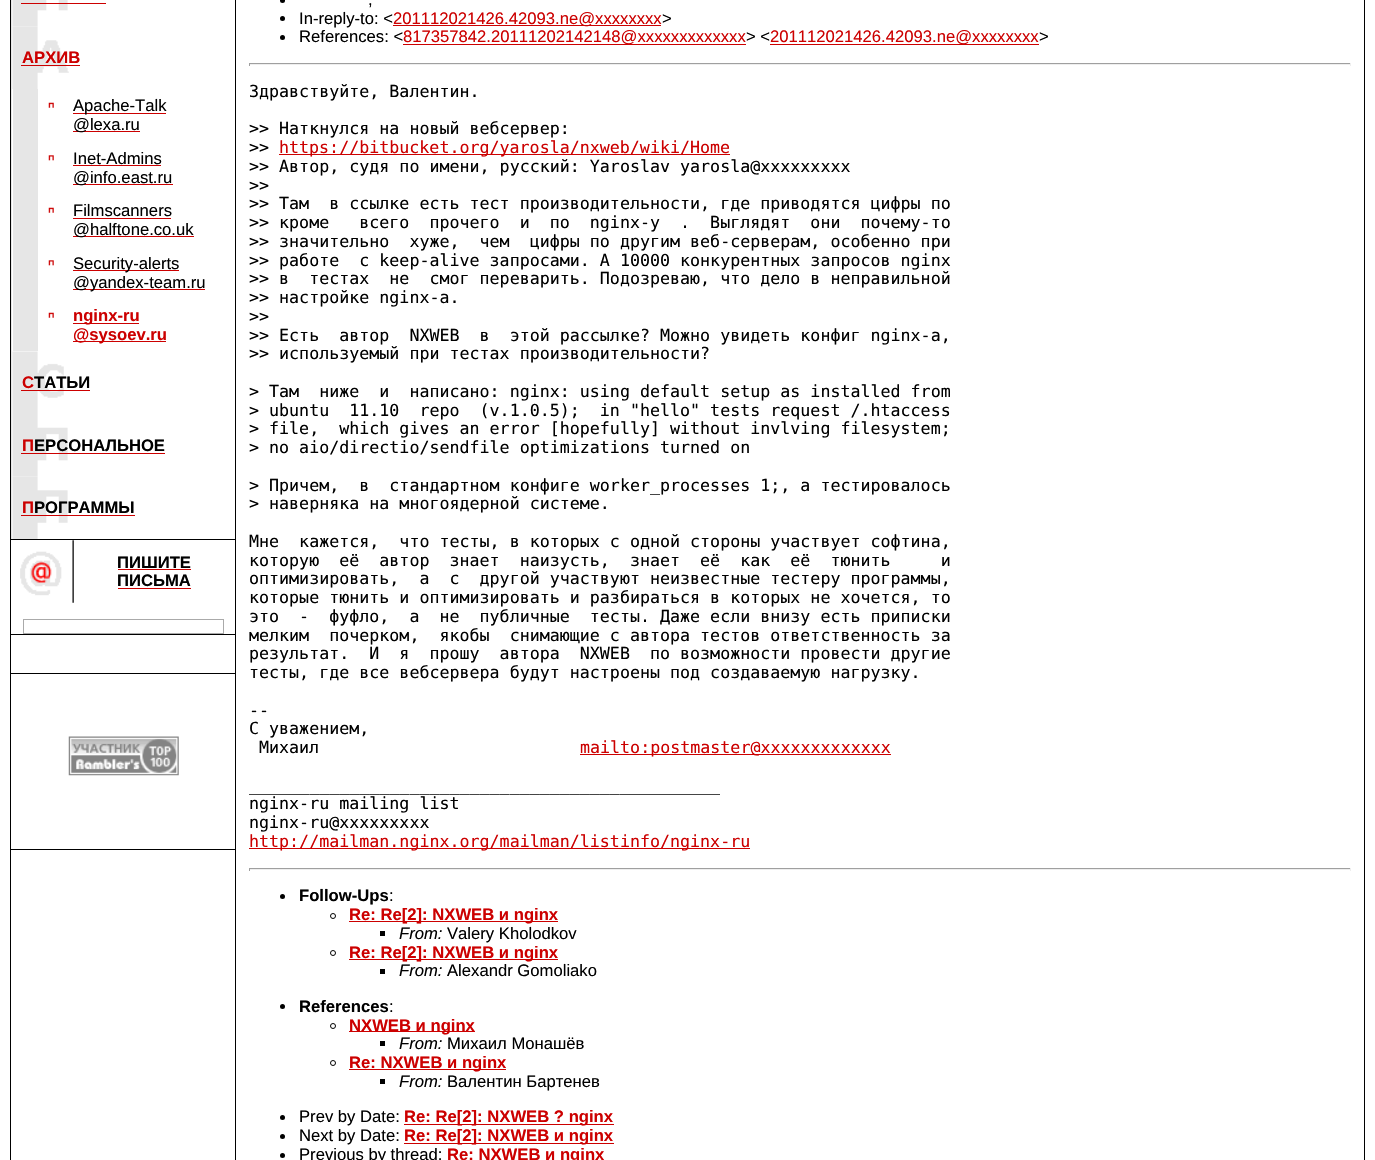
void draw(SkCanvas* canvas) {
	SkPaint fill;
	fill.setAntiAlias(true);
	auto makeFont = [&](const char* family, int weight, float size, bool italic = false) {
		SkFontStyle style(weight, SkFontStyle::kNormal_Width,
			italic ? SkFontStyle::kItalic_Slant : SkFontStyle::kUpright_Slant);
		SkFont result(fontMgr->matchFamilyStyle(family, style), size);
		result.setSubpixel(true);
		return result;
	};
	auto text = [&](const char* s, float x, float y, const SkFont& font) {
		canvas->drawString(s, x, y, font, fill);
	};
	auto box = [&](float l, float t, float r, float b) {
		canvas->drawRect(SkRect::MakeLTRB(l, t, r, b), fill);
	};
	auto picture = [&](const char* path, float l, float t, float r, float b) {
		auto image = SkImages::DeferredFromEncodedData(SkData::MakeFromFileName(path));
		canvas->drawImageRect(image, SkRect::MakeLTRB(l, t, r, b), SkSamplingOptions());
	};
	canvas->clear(0xFFFFFFFF);
	fill.setColor(0xFF000000);
	box(10, 0, 11, 1160);
	fill.setColor(0xFFE6E6E6);
	box(11, 0, 12, 539);
	picture("image0.png", 12, 0, 68, 27);
	fill.setColor(0xFFCC0000);
	box(21, 3, 106, 4);
	picture("image1.png", 12, 26, 69, 89);
	box(21, 65, 80, 66);
	fill.setColor(0xFFE6E6E6);
	box(13, 89, 38, 351);
	picture("image2.png", 48, 102, 54, 108);
	fill.setColor(0xFFCC0000);
	box(73, 113, 166, 114);
	box(73, 131, 140, 132);
	picture("image3.png", 48, 155, 54, 161);
	box(73, 165, 161, 166);
	box(73, 184, 173, 185);
	picture("image2.png", 48, 207, 54, 213);
	box(73, 218, 171, 219);
	box(73, 236, 194, 237);
	picture("image3.png", 48, 260, 54, 266);
	box(73, 270, 179, 271);
	box(73, 289, 205, 290);
	picture("image2.png", 48, 312, 54, 318);
	box(73, 323, 139, 324);
	box(73, 341, 166, 342);
	picture("image4.png", 12, 351, 64, 414);
	box(21, 390, 90, 391);
	picture("image5.png", 12, 414, 68, 477);
	box(21, 453, 165, 454);
	picture("image6.png", 12, 476, 68, 539);
	box(21, 515, 135, 516);
	fill.setColor(0xFF000000);
	box(11, 539, 235, 540);
	picture("image7.png", 20, 540, 74, 603);
	fill.setColor(0xFFCC0000);
	box(118, 569, 191, 570);
	box(118, 588, 191, 589);
	fill.setColor(0xFFAAAAAA);
	box(23, 619, 224, 634);
	fill.setColor(0xFFFFFFFF);
	box(24, 620, 223, 633);
	fill.setColor(0xFF000000);
	box(11, 634, 235, 635);
	box(11, 673, 235, 674);
	picture("image8.png", 68, 736, 179, 776);
	box(11, 849, 235, 850);
	box(235, 0, 236, 1160);
	canvas->drawCircle(282.5f, 0.5f, 2.5f, fill);
	canvas->drawCircle(282.5f, 18.5f, 2.5f, fill);
	fill.setColor(0xFFCC0000);
	box(393, 25, 661, 26);
	fill.setColor(0xFF000000);
	canvas->drawCircle(282.5f, 37.5f, 2.5f, fill);
	fill.setColor(0xFFCC0000);
	box(403, 44, 746, 45);
	box(770, 44, 1039, 45);
	fill.setColor(0xFF9F9F9F);
	box(249, 63, 1351, 64);
	fill.setColor(0xFFEEEEEE);
	box(1350, 63, 1351, 66);
	box(249, 64, 1351, 65);
	fill.setColor(0xFF9F9F9F);
	box(249, 63, 250, 66);
	fill.setColor(0xFFCC0000);
	box(279, 154, 730, 155);
	box(580, 754, 891, 755);
	box(249, 848, 750, 849);
	fill.setColor(0xFF9F9F9F);
	box(249, 868, 1351, 869);
	fill.setColor(0xFFEEEEEE);
	box(1350, 868, 1351, 871);
	box(249, 869, 1351, 870);
	fill.setColor(0xFF9F9F9F);
	box(249, 868, 250, 871);
	fill.setColor(0xFF000000);
	canvas->drawCircle(282.5f, 896.5f, 2.5f, fill);
	fill.setStyle(SkPaint::kStroke_Style);
	fill.setStrokeWidth(1);
	canvas->drawCircle(333, 916, 2.5f, fill);
	fill.setStyle(SkPaint::kFill_Style);
	fill.setColor(0xFFCC0000);
	box(349, 921, 558, 922);
	fill.setColor(0xFF000000);
	box(380, 931, 385, 936);
	fill.setStyle(SkPaint::kStroke_Style);
	canvas->drawCircle(333, 953, 2.5f, fill);
	fill.setStyle(SkPaint::kFill_Style);
	fill.setColor(0xFFCC0000);
	box(349, 959, 558, 960);
	fill.setColor(0xFF000000);
	box(380, 969, 385, 974);
	canvas->drawCircle(282.5f, 1006.5f, 2.5f, fill);
	fill.setStyle(SkPaint::kStroke_Style);
	canvas->drawCircle(333, 1026, 2.5f, fill);
	fill.setStyle(SkPaint::kFill_Style);
	fill.setColor(0xFFCC0000);
	box(349, 1031, 475, 1032);
	fill.setColor(0xFF000000);
	box(380, 1041, 385, 1046);
	fill.setStyle(SkPaint::kStroke_Style);
	canvas->drawCircle(333, 1063, 2.5f, fill);
	fill.setStyle(SkPaint::kFill_Style);
	fill.setColor(0xFFCC0000);
	box(349, 1069, 506, 1070);
	fill.setColor(0xFF000000);
	box(380, 1079, 385, 1084);
	canvas->drawCircle(282.5f, 1117.5f, 2.5f, fill);
	fill.setColor(0xFFCC0000);
	box(404, 1124, 614, 1125);
	fill.setColor(0xFF000000);
	canvas->drawCircle(282.5f, 1136.5f, 2.5f, fill);
	fill.setColor(0xFFCC0000);
	box(404, 1143, 614, 1144);
	fill.setColor(0xFF000000);
	canvas->drawCircle(282.5f, 1155.5f, 2.5f, fill);
	box(1364, 0, 1365, 1160);
	auto font1 = makeFont("Liberation Sans", 700, 16.65f);
	fill.setColor(0xFFCC0000);
	text("АРХИВ", 22, 63, font1);
	auto font2 = makeFont("Liberation Sans", 400, 16.65f);
	fill.setColor(0xFF000000);
	text("Apache-Talk", 73, 111, font2);
	text("@lexa.ru", 73, 130, font2);
	text("Inet-Admins", 73, 164, font2);
	text("@info.east.ru", 73, 183, font2);
	text("Filmscanners", 73, 216, font2);
	text("@halftone.co.uk", 73, 235, font2);
	text("Security-alerts", 73, 269, font2);
	text("@yandex-team.ru", 73, 288, font2);
	fill.setColor(0xFFCC0000);
	text("nginx-ru", 73, 321, font1);
	text("@sysoev.ru", 73, 340, font1);
	text("С", 22, 388, font1);
	fill.setColor(0xFF000000);
	text("ТАТЬИ", 34, 388, font1);
	fill.setColor(0xFFCC0000);
	text("П", 22, 451, font1);
	fill.setColor(0xFF000000);
	text("ЕРСОНАЛЬНОЕ", 34, 451, font1);
	fill.setColor(0xFFCC0000);
	text("П", 22, 513, font1);
	fill.setColor(0xFF000000);
	text("РОГРАММЫ", 34, 513, font1);
	text("ПИШИТЕ", 117, 568, font1);
	text("ПИСЬМА", 117, 586, font1);
	text(",", 368, 5, font2);
	text("In-reply-to: <", 299, 24, font2);
	fill.setColor(0xFFCC0000);
	text("201112021426.42093.ne@xxxxxxxx", 393, 24, font2);
	fill.setColor(0xFF000000);
	text(">", 662, 24, font2);
	text("References: <", 299, 42, font2);
	fill.setColor(0xFFCC0000);
	text("817357842.20111202142148@xxxxxxxxxxxxx", 403, 42, font2);
	fill.setColor(0xFF000000);
	text("> <", 746, 42, font2);
	fill.setColor(0xFFCC0000);
	text("201112021426.42093.ne@xxxxxxxx", 770, 42, font2);
	fill.setColor(0xFF000000);
	text(">", 1039, 42, font2);
	auto font3 = makeFont("DejaVu Sans Mono", 400, 16.65f);
	text("Здравствуйте, Валентин.", 249, 97, font3);
	text(">> Наткнулся на новый вебсервер:", 249, 134, font3);
	text(">>", 249, 153, font3);
	fill.setColor(0xFFCC0000);
	text("https://bitbucket.org/yarosla/nxweb/wiki/Home", 279, 153, font3);
	fill.setColor(0xFF000000);
	text(">> Автор, судя по имени, русский: Yaroslav yarosla@xxxxxxxxx", 249, 172, font3);
	text(">>", 249, 191, font3);
	text(">> Там  в ссылке есть тест производительности, где приводятся цифры по", 249, 209, font3);
	text(">> кроме   всего  прочего  и  по  nginx-у  .  Выглядят  они  почему-то", 249, 228, font3);
	text(">> значительно  хуже,  чем  цифры по другим веб-серверам, особенно при", 249, 247, font3);
	text(">> работе  с keep-alive запросами. А 10000 конкурентных запросов nginx", 249, 266, font3);
	text(">> в  тестах  не  смог переварить. Подозреваю, что дело в неправильной", 249, 284, font3);
	text(">> настройке nginx-а.", 249, 303, font3);
	text(">>", 249, 322, font3);
	text(">> Есть  автор  NXWEB  в  этой рассылке? Можно увидеть конфиг nginx-а,", 249, 341, font3);
	text(">> используемый при тестах производительности?", 249, 359, font3);
	text("> Там  ниже  и  написано: nginx: using default setup as installed from", 249, 397, font3);
	text("> ubuntu  11.10  repo  (v.1.0.5);  in \"hello\" tests request /.htaccess", 249, 416, font3);
	text("> file,  which gives an error [hopefully] without invlving filesystem;", 249, 434, font3);
	text("> no aio/directio/sendfile optimizations turned on", 249, 453, font3);
	text("> Причем,  в  стандартном конфиге worker_processes 1;, а тестировалось", 249, 491, font3);
	text("> наверняка на многоядерной системе.", 249, 509, font3);
	text("Мне  кажется,  что тесты, в которых с одной стороны участвует софтина,", 249, 547, font3);
	text("которую  её  автор  знает  наизусть,  знает  её  как  её  тюнить     и", 249, 566, font3);
	text("оптимизировать,  а  с  другой участвуют неизвестные тестеру программы,", 249, 584, font3);
	text("которые тюнить и оптимизировать и разбираться в которых не хочется, то", 249, 603, font3);
	text("это  -  фуфло,  а  не  публичные  тесты. Даже если внизу есть приписки", 249, 622, font3);
	text("мелким  почерком,  якобы  снимающие с автора тестов ответственность за", 249, 641, font3);
	text("результат.  И  я  прошу  автора  NXWEB  по возможности провести другие", 249, 659, font3);
	text("тесты, где все вебсервера будут настроены под создаваемую нагрузку.", 249, 678, font3);
	text("--", 249, 716, font3);
	text("С уважением,", 249, 734, font3);
	text("Михаил", 259, 753, font3);
	fill.setColor(0xFFCC0000);
	text("mailto:postmaster@xxxxxxxxxxxxx", 580, 753, font3);
	fill.setColor(0xFF000000);
	text("_______________________________________________", 249, 791, font3);
	text("nginx-ru mailing list", 249, 809, font3);
	text("nginx-ru@xxxxxxxxx", 249, 828, font3);
	fill.setColor(0xFFCC0000);
	text("http://mailman.nginx.org/mailman/listinfo/nginx-ru", 249, 847, font3);
	fill.setColor(0xFF000000);
	text("Follow-Ups", 299, 901, font1);
	text(":", 389, 901, font2);
	fill.setColor(0xFFCC0000);
	text("Re: Re[2]: NXWEB и nginx", 349, 920, font1);
	auto font4 = makeFont("Liberation Sans", 400, 16.65f, true);
	fill.setColor(0xFF000000);
	text("From:", 399, 939, font4);
	text("Valery Kholodkov", 447, 939, font2);
	fill.setColor(0xFFCC0000);
	text("Re: Re[2]: NXWEB и nginx", 349, 958, font1);
	fill.setColor(0xFF000000);
	text("From:", 399, 976, font4);
	text("Alexandr Gomoliako", 447, 976, font2);
	text("References", 299, 1012, font1);
	text(":", 389, 1012, font2);
	fill.setColor(0xFFCC0000);
	text("NXWEB и nginx", 349, 1031, font1);
	fill.setColor(0xFF000000);
	text("From:", 399, 1049, font4);
	text("Михаил Монашёв", 447, 1049, font2);
	fill.setColor(0xFFCC0000);
	text("Re: NXWEB и nginx", 349, 1068, font1);
	fill.setColor(0xFF000000);
	text("From:", 399, 1087, font4);
	text("Валентин Бартенев", 447, 1087, font2);
	text("Prev by Date:", 299, 1122, font2);
	fill.setColor(0xFFCC0000);
	text("Re: Re[2]: NXWEB ? nginx", 404, 1122, font1);
	fill.setColor(0xFF000000);
	text("Next by Date:", 299, 1141, font2);
	fill.setColor(0xFFCC0000);
	text("Re: Re[2]: NXWEB и nginx", 404, 1141, font1);
	fill.setColor(0xFF000000);
	text("Previous by thread:", 299, 1160, font2);
	fill.setColor(0xFFCC0000);
	text("Re: NXWEB и nginx", 447, 1160, font1);
}
